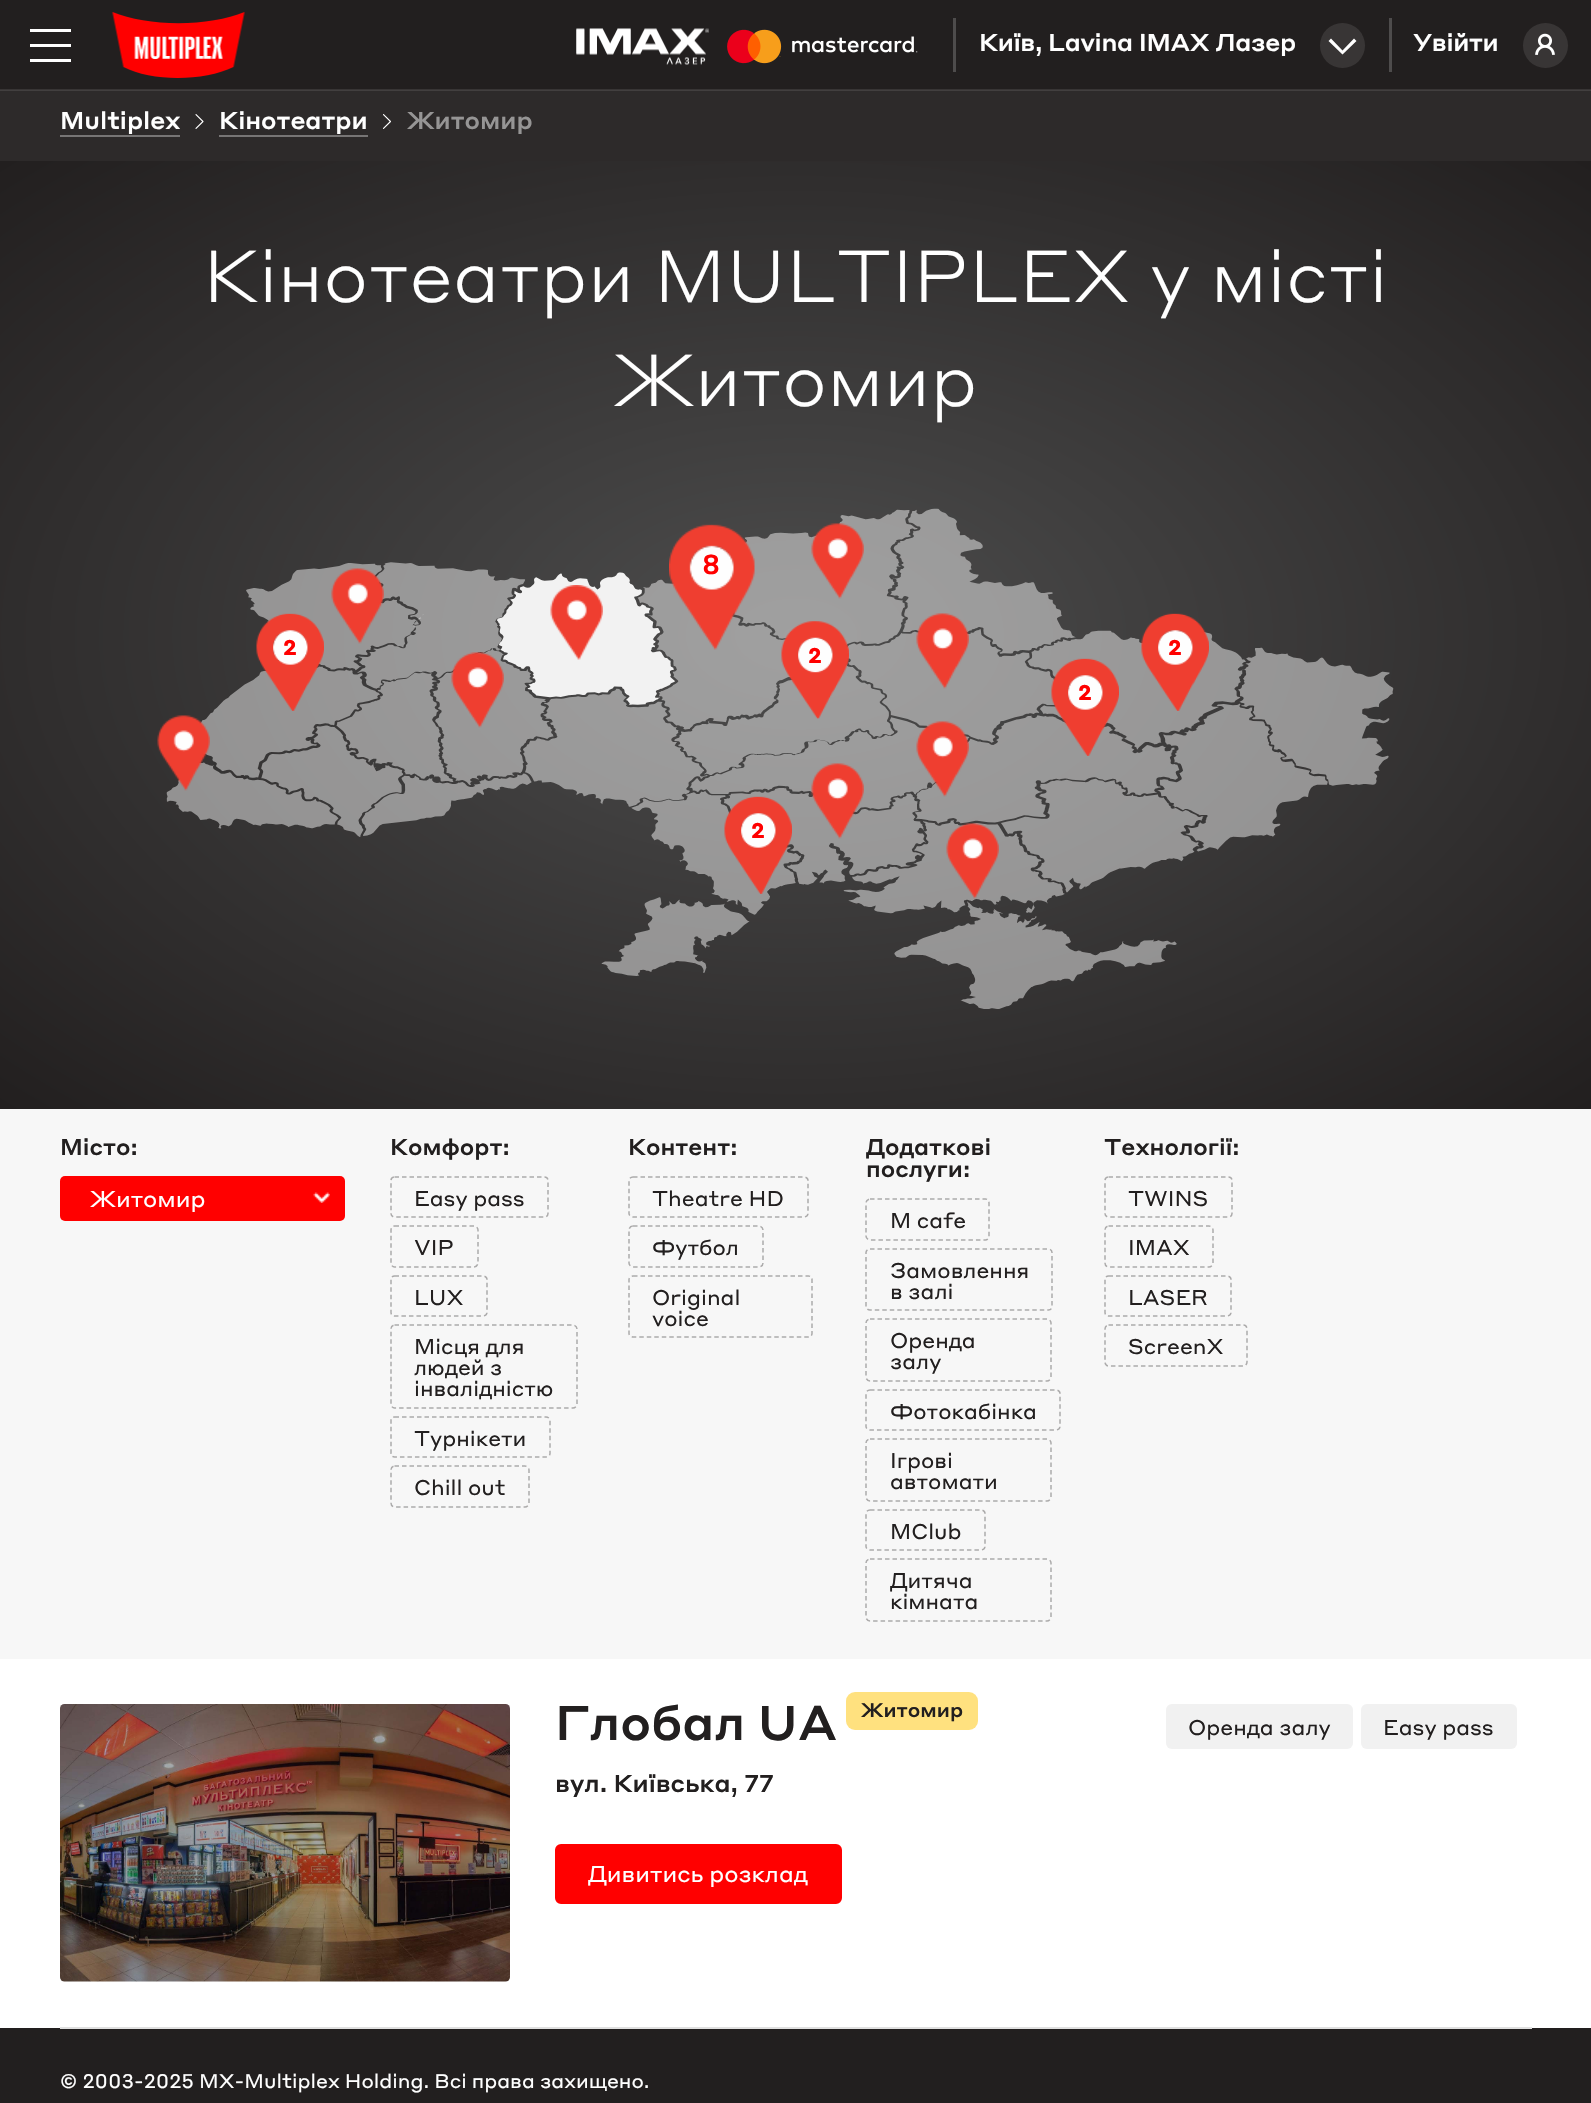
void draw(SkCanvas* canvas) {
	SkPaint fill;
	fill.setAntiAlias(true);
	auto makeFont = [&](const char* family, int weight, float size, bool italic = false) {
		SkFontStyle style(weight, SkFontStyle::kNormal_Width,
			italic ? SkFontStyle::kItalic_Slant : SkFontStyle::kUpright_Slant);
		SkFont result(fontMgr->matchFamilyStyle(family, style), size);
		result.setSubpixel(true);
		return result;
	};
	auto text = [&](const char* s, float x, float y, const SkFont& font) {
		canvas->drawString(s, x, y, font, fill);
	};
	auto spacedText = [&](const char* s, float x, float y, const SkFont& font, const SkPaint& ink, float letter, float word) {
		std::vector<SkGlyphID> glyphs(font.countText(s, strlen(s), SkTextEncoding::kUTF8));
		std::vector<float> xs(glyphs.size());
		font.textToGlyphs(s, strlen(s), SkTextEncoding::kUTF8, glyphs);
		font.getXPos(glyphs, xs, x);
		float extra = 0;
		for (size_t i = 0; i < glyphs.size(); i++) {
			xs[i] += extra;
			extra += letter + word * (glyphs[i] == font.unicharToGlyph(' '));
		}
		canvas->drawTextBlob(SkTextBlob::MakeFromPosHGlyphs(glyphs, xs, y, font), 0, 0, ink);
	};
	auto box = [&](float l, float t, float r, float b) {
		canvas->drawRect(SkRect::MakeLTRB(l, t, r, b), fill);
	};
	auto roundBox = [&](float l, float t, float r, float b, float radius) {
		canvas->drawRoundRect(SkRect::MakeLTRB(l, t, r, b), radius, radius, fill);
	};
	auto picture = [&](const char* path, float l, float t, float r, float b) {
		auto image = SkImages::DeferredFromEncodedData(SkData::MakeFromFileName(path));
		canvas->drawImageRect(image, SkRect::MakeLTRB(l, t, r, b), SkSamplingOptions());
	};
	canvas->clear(0xFF2D2A2A);
	fill.setColor(0xFF423F3F);
	box(0, 90, 1591, 91);
	fill.setColor(0xFF221F1F);
	box(0, 0, 1591, 89);
	fill.setColor(0xFF383535);
	box(0, 89, 1591, 90);
	fill.setColor(0xFFFFFFFF);
	box(30, 29, 71, 32);
	box(30, 44, 71, 47);
	box(30, 59, 71, 62);
	picture("image0.png", 112, 12, 245, 78);
	picture("image1.png", 576, 28, 709, 65);
	picture("image2.png", 727, 29, 918, 64);
	fill.setColor(0xFF4E4C4C);
	box(953, 18, 956, 72);
	fill.setColor(0xFF383535);
	canvas->drawCircle(1342.5f, 45.5f, 22.5f, fill);
	fill.setColor(0xFFFFFFFF);
	canvas->drawPath(SkPathBuilder().moveTo(1342.5f, 50.5f).lineTo(1331, 38.5f).lineTo(1328.5f, 41).lineTo(1342.5f, 54.5f).lineTo(1356.5f, 41).lineTo(1354, 38.5f).close().detach(), fill);
	fill.setColor(0xFF4E4C4C);
	box(1389, 18, 1392, 72);
	fill.setColor(0xFF383535);
	canvas->drawCircle(1545.5f, 45.5f, 22.5f, fill);
	picture("image3.png", 1535, 33, 1555, 55);
	fill.setColor(0xFF777575);
	box(60, 135, 180, 137);
	picture("image4.png", 195, 114, 204, 129);
	box(219, 135, 368, 137);
	picture("image5.png", 383, 114, 391, 129);
	{
		const SkColor colors[] = {0xFF4D4D4D, 0xFF221F1F};
		const float stops[] = {0, 1};
		SkMatrix m = SkMatrix::Translate(796, 635).preScale(1125, 670);
		fill.setShader(SkGradientShader::MakeRadial({0, 0}, 1, colors, stops, 2, SkTileMode::kClamp, 0, &m));
		fill.setAlpha(255);
	}
	box(0, 161, 1591, 1109);
	picture("image6.png", 166, 508, 1394, 1009);
	picture("image7.png", 669, 524, 755, 650);
	picture("image8.png", 811, 523, 864, 599);
	picture("image9.png", 256, 613, 324, 711);
	picture("image10.png", 331, 568, 384, 644);
	picture("image11.png", 451, 652, 504, 728);
	picture("image12.png", 550, 585, 603, 660);
	picture("image13.png", 781, 621, 849, 719);
	picture("image14.png", 916, 613, 969, 689);
	picture("image15.png", 1051, 658, 1119, 756);
	picture("image16.png", 1141, 613, 1209, 711);
	picture("image17.png", 157, 715, 210, 791);
	picture("image18.png", 724, 796, 792, 894);
	picture("image19.png", 811, 763, 864, 839);
	picture("image20.png", 916, 721, 969, 797);
	picture("image21.png", 946, 823, 999, 899);
	fill.setShader(nullptr);
	fill.setColor(0xFFF7F7F7);
	box(0, 1109, 1591, 1659);
	fill.setColor(0xFFFF0000);
	roundBox(60, 1176, 345, 1221, 5);
	picture("image22.png", 313, 1192, 330, 1203);
	fill.setStyle(SkPaint::kStroke_Style);
	fill.setStrokeWidth(1.5f);
	fill.setColor(0xFFACABAB);
	fill.setPathEffect(SkDashPathEffect::Make({{4.5f, 3}}, 0));
	canvas->drawPath(SkPathBuilder().moveTo(394.5f, 1177).lineTo(544.5f, 1177).cubicTo(546.5f, 1177, 548, 1178.5f, 548, 1180.5f).lineTo(548, 1213.5f).cubicTo(548, 1215.5f, 546.5f, 1217, 544.5f, 1217).lineTo(394.5f, 1217).cubicTo(392.5f, 1217, 391, 1215.5f, 391, 1213.5f).lineTo(391, 1180.5f).cubicTo(391, 1178.5f, 392.5f, 1177, 394.5f, 1177).close().detach(), fill);
	fill.setPathEffect(nullptr);
	fill.setPathEffect(SkDashPathEffect::Make({{4.5f, 3}}, 0));
	canvas->drawPath(SkPathBuilder().moveTo(394.5f, 1226).lineTo(474, 1226).cubicTo(476, 1226, 478, 1228, 478, 1230).lineTo(478, 1263).cubicTo(478, 1265, 476, 1267, 474, 1267).lineTo(394.5f, 1267).cubicTo(392.5f, 1267, 391, 1265, 391, 1263).lineTo(391, 1230).cubicTo(391, 1228, 392.5f, 1226, 394.5f, 1226).close().detach(), fill);
	fill.setPathEffect(nullptr);
	fill.setPathEffect(SkDashPathEffect::Make({{4.5f, 3}}, 0));
	canvas->drawPath(SkPathBuilder().moveTo(394.5f, 1276).lineTo(483, 1276).cubicTo(485, 1276, 487, 1277.5f, 487, 1279.5f).lineTo(487, 1312.5f).cubicTo(487, 1314.5f, 485, 1316, 483, 1316).lineTo(394.5f, 1316).cubicTo(392.5f, 1316, 391, 1314.5f, 391, 1312.5f).lineTo(391, 1279.5f).cubicTo(391, 1277.5f, 392.5f, 1276, 394.5f, 1276).close().detach(), fill);
	fill.setPathEffect(nullptr);
	fill.setPathEffect(SkDashPathEffect::Make({{4.5f, 3}}, 0));
	canvas->drawPath(SkPathBuilder().moveTo(394.5f, 1325).lineTo(573, 1325).cubicTo(575, 1325, 577, 1327, 577, 1329).lineTo(577, 1404).cubicTo(577, 1406, 575, 1408, 573, 1408).lineTo(394.5f, 1408).cubicTo(392.5f, 1408, 391, 1406, 391, 1404).lineTo(391, 1329).cubicTo(391, 1327, 392.5f, 1325, 394.5f, 1325).close().detach(), fill);
	fill.setPathEffect(nullptr);
	fill.setPathEffect(SkDashPathEffect::Make({{4.5f, 3}}, 0));
	canvas->drawPath(SkPathBuilder().moveTo(394.5f, 1417).lineTo(546, 1417).cubicTo(548, 1417, 550, 1418.5f, 550, 1420.5f).lineTo(550, 1453.5f).cubicTo(550, 1455.5f, 548, 1457, 546, 1457).lineTo(394.5f, 1457).cubicTo(392.5f, 1457, 391, 1455.5f, 391, 1453.5f).lineTo(391, 1420.5f).cubicTo(391, 1418.5f, 392.5f, 1417, 394.5f, 1417).close().detach(), fill);
	fill.setPathEffect(nullptr);
	fill.setPathEffect(SkDashPathEffect::Make({{4.5f, 3}}, 0));
	canvas->drawPath(SkPathBuilder().moveTo(394.5f, 1466).lineTo(525, 1466).cubicTo(527, 1466, 529, 1468, 529, 1470).lineTo(529, 1503).cubicTo(529, 1505, 527, 1507, 525, 1507).lineTo(394.5f, 1507).cubicTo(392.5f, 1507, 391, 1505, 391, 1503).lineTo(391, 1470).cubicTo(391, 1468, 392.5f, 1466, 394.5f, 1466).close().detach(), fill);
	fill.setPathEffect(nullptr);
	fill.setPathEffect(SkDashPathEffect::Make({{4.5f, 3}}, 0));
	canvas->drawPath(SkPathBuilder().moveTo(633, 1177).lineTo(804, 1177).cubicTo(806, 1177, 808, 1178.5f, 808, 1180.5f).lineTo(808, 1213.5f).cubicTo(808, 1215.5f, 806, 1217, 804, 1217).lineTo(633, 1217).cubicTo(631, 1217, 629, 1215.5f, 629, 1213.5f).lineTo(629, 1180.5f).cubicTo(629, 1178.5f, 631, 1177, 633, 1177).close().detach(), fill);
	fill.setPathEffect(nullptr);
	fill.setPathEffect(SkDashPathEffect::Make({{4.5f, 3}}, 0));
	canvas->drawPath(SkPathBuilder().moveTo(633, 1226).lineTo(759, 1226).cubicTo(761, 1226, 763, 1228, 763, 1230).lineTo(763, 1263).cubicTo(763, 1265, 761, 1267, 759, 1267).lineTo(633, 1267).cubicTo(631, 1267, 629, 1265, 629, 1263).lineTo(629, 1230).cubicTo(629, 1228, 631, 1226, 633, 1226).close().detach(), fill);
	fill.setPathEffect(nullptr);
	fill.setPathEffect(SkDashPathEffect::Make({{4.5f, 3}}, 0));
	canvas->drawPath(SkPathBuilder().moveTo(633, 1276).lineTo(808.5f, 1276).cubicTo(810.5f, 1276, 812, 1277.5f, 812, 1279.5f).lineTo(812, 1333.5f).cubicTo(812, 1335.5f, 810.5f, 1337, 808.5f, 1337).lineTo(633, 1337).cubicTo(631, 1337, 629, 1335.5f, 629, 1333.5f).lineTo(629, 1279.5f).cubicTo(629, 1277.5f, 631, 1276, 633, 1276).close().detach(), fill);
	fill.setPathEffect(nullptr);
	fill.setPathEffect(SkDashPathEffect::Make({{4.5f, 3}}, 0));
	canvas->drawPath(SkPathBuilder().moveTo(870, 1199).lineTo(985.5f, 1199).cubicTo(987.5f, 1199, 989, 1201, 989, 1203).lineTo(989, 1236).cubicTo(989, 1238, 987.5f, 1240, 985.5f, 1240).lineTo(870, 1240).cubicTo(868, 1240, 866, 1238, 866, 1236).lineTo(866, 1203).cubicTo(866, 1201, 868, 1199, 870, 1199).close().detach(), fill);
	fill.setPathEffect(nullptr);
	fill.setPathEffect(SkDashPathEffect::Make({{4.5f, 3}}, 0));
	canvas->drawPath(SkPathBuilder().moveTo(870, 1249).lineTo(1048.5f, 1249).cubicTo(1050.5f, 1249, 1052, 1250.5f, 1052, 1252.5f).lineTo(1052, 1306.5f).cubicTo(1052, 1308.5f, 1050.5f, 1310, 1048.5f, 1310).lineTo(870, 1310).cubicTo(868, 1310, 866, 1308.5f, 866, 1306.5f).lineTo(866, 1252.5f).cubicTo(866, 1250.5f, 868, 1249, 870, 1249).close().detach(), fill);
	fill.setPathEffect(nullptr);
	fill.setPathEffect(SkDashPathEffect::Make({{4.5f, 3}}, 0));
	canvas->drawPath(SkPathBuilder().moveTo(870, 1319).lineTo(1047, 1319).cubicTo(1049, 1319, 1051, 1321, 1051, 1323).lineTo(1051, 1377).cubicTo(1051, 1379, 1049, 1381, 1047, 1381).lineTo(870, 1381).cubicTo(868, 1381, 866, 1379, 866, 1377).lineTo(866, 1323).cubicTo(866, 1321, 868, 1319, 870, 1319).close().detach(), fill);
	fill.setPathEffect(nullptr);
	fill.setPathEffect(SkDashPathEffect::Make({{4.5f, 3}}, 0));
	canvas->drawPath(SkPathBuilder().moveTo(870, 1390).lineTo(1056, 1390).cubicTo(1058, 1390, 1060, 1391.5f, 1060, 1393.5f).lineTo(1060, 1426.5f).cubicTo(1060, 1428.5f, 1058, 1430, 1056, 1430).lineTo(870, 1430).cubicTo(868, 1430, 866, 1428.5f, 866, 1426.5f).lineTo(866, 1393.5f).cubicTo(866, 1391.5f, 868, 1390, 870, 1390).close().detach(), fill);
	fill.setPathEffect(nullptr);
	fill.setPathEffect(SkDashPathEffect::Make({{4.5f, 3}}, 0));
	canvas->drawPath(SkPathBuilder().moveTo(870, 1439).lineTo(1047, 1439).cubicTo(1049, 1439, 1051, 1441, 1051, 1443).lineTo(1051, 1497).cubicTo(1051, 1499, 1049, 1501, 1047, 1501).lineTo(870, 1501).cubicTo(868, 1501, 866, 1499, 866, 1497).lineTo(866, 1443).cubicTo(866, 1441, 868, 1439, 870, 1439).close().detach(), fill);
	fill.setPathEffect(nullptr);
	fill.setPathEffect(SkDashPathEffect::Make({{4.5f, 3}}, 0));
	canvas->drawPath(SkPathBuilder().moveTo(870, 1510).lineTo(981, 1510).cubicTo(983, 1510, 985, 1511.5f, 985, 1513.5f).lineTo(985, 1546.5f).cubicTo(985, 1548.5f, 983, 1550, 981, 1550).lineTo(870, 1550).cubicTo(868, 1550, 866, 1548.5f, 866, 1546.5f).lineTo(866, 1513.5f).cubicTo(866, 1511.5f, 868, 1510, 870, 1510).close().detach(), fill);
	fill.setPathEffect(nullptr);
	fill.setPathEffect(SkDashPathEffect::Make({{4.5f, 3}}, 0));
	canvas->drawPath(SkPathBuilder().moveTo(870, 1559).lineTo(1047, 1559).cubicTo(1049, 1559, 1051, 1561, 1051, 1563).lineTo(1051, 1617).cubicTo(1051, 1619, 1049, 1621, 1047, 1621).lineTo(870, 1621).cubicTo(868, 1621, 866, 1619, 866, 1617).lineTo(866, 1563).cubicTo(866, 1561, 868, 1559, 870, 1559).close().detach(), fill);
	fill.setPathEffect(nullptr);
	fill.setPathEffect(SkDashPathEffect::Make({{4.5f, 3}}, 0));
	canvas->drawPath(SkPathBuilder().moveTo(1108.5f, 1177).lineTo(1228.5f, 1177).cubicTo(1230.5f, 1177, 1232, 1178.5f, 1232, 1180.5f).lineTo(1232, 1213.5f).cubicTo(1232, 1215.5f, 1230.5f, 1217, 1228.5f, 1217).lineTo(1108.5f, 1217).cubicTo(1106.5f, 1217, 1105, 1215.5f, 1105, 1213.5f).lineTo(1105, 1180.5f).cubicTo(1105, 1178.5f, 1106.5f, 1177, 1108.5f, 1177).close().detach(), fill);
	fill.setPathEffect(nullptr);
	fill.setPathEffect(SkDashPathEffect::Make({{4.5f, 3}}, 0));
	canvas->drawPath(SkPathBuilder().moveTo(1108.5f, 1226).lineTo(1209, 1226).cubicTo(1211, 1226, 1213, 1228, 1213, 1230).lineTo(1213, 1263).cubicTo(1213, 1265, 1211, 1267, 1209, 1267).lineTo(1108.5f, 1267).cubicTo(1106.5f, 1267, 1105, 1265, 1105, 1263).lineTo(1105, 1230).cubicTo(1105, 1228, 1106.5f, 1226, 1108.5f, 1226).close().detach(), fill);
	fill.setPathEffect(nullptr);
	fill.setPathEffect(SkDashPathEffect::Make({{4.5f, 3}}, 0));
	canvas->drawPath(SkPathBuilder().moveTo(1108.5f, 1276).lineTo(1227, 1276).cubicTo(1229, 1276, 1231, 1277.5f, 1231, 1279.5f).lineTo(1231, 1312.5f).cubicTo(1231, 1314.5f, 1229, 1316, 1227, 1316).lineTo(1108.5f, 1316).cubicTo(1106.5f, 1316, 1105, 1314.5f, 1105, 1312.5f).lineTo(1105, 1279.5f).cubicTo(1105, 1277.5f, 1106.5f, 1276, 1108.5f, 1276).close().detach(), fill);
	fill.setPathEffect(nullptr);
	fill.setPathEffect(SkDashPathEffect::Make({{4.5f, 3}}, 0));
	canvas->drawPath(SkPathBuilder().moveTo(1108.5f, 1325).lineTo(1243.5f, 1325).cubicTo(1245.5f, 1325, 1247, 1327, 1247, 1329).lineTo(1247, 1362).cubicTo(1247, 1364, 1245.5f, 1366, 1243.5f, 1366).lineTo(1108.5f, 1366).cubicTo(1106.5f, 1366, 1105, 1364, 1105, 1362).lineTo(1105, 1329).cubicTo(1105, 1327, 1106.5f, 1325, 1108.5f, 1325).close().detach(), fill);
	fill.setPathEffect(nullptr);
	fill.setStyle(SkPaint::kFill_Style);
	fill.setColor(0xFFFFFFFF);
	box(0, 1659, 1591, 2028);
	fill.setColor(0xFF221F1F);
	box(0, 2028, 1591, 2103);
	fill.setColor(0xFFE0E0E0);
	box(60, 2027, 1532, 2029);
	picture("image23.png", 60, 1704, 510, 1982);
	fill.setColor(0xFFFFE17F);
	roundBox(846, 1692, 978, 1730, 9);
	fill.setColor(0xFFFF0000);
	canvas->drawRoundRect(SkRect::MakeLTRB(556.5f, 1845.5f, 840.5f, 1902.5f), 4.5f, 4.5f, fill);
	fill.setStyle(SkPaint::kStroke_Style);
	fill.setStrokeWidth(3);
	canvas->drawRoundRect(SkRect::MakeLTRB(556.5f, 1845.5f, 840.5f, 1902.5f), 4.5f, 4.5f, fill);
	fill.setStyle(SkPaint::kFill_Style);
	fill.setColor(0xFFF1F1F1);
	roundBox(1166, 1704, 1353, 1749, 6);
	roundBox(1361, 1704, 1517, 1749, 6);
	auto font1 = makeFont("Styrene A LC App", 500, 24);
	fill.setColor(0xFFFFFFFF);
	spacedText("Київ, Lavina IMAX Лазер", 979, 51, font1, fill, -0.3f, 0);
	spacedText("Увійти", 1413, 51, font1, fill, -0.3f, 0);
	text("Multiplex", 60, 129, font1);
	text("Кінотеатри", 219, 129, font1);
	fill.setColor(0xFF969595);
	text("Житомир", 407, 129, font1);
	auto font2 = makeFont("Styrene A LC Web", 300, 72.25f);
	fill.setColor(0xFFFFFFFF);
	text("Кінотеатри MULTIPLEX у місті", 203, 302, font2);
	text("Житомир", 613, 406, font2);
	auto font3 = makeFont("Styrene A LC App", 500, 27);
	fill.setColor(0xFFFF0000);
	text("8", 702, 574, font3);
	auto font4 = makeFont("Styrene A LC Web", 700, 21);
	text("2", 283, 655, font4);
	text("2", 808, 663, font4);
	text("2", 1078, 700, font4);
	text("2", 1168, 655, font4);
	text("2", 751, 838, font4);
	auto font5 = makeFont("Styrene A LC App", 500, 22.5f);
	fill.setColor(0xFF221F1F);
	text("Місто:", 60, 1155, font5);
	auto font6 = makeFont("Styrene A LC Web", 400, 22.5f);
	fill.setColor(0xFFFFFFFF);
	text("Житомир", 90, 1207, font6);
	fill.setColor(0xFF221F1F);
	text("Комфорт:", 390, 1155, font5);
	auto font7 = makeFont("Styrene A LC Web", 400, 21);
	text("Easy pass", 414, 1206, font7);
	text("VIP", 414, 1255, font7);
	text("LUX", 414, 1305, font7);
	text("Місця для", 414, 1354, font7);
	text("людей з", 414, 1375, font7);
	text("інвалідністю", 414, 1396, font7);
	text("Турнікети", 414, 1446, font7);
	text("Chill out", 414, 1495, font7);
	text("Контент:", 628, 1155, font5);
	text("Theatre HD", 652, 1206, font7);
	text("Футбол", 652, 1255, font7);
	text("Original", 652, 1305, font7);
	text("voice", 652, 1326, font7);
	text("Додаткові", 866, 1155, font5);
	text("послуги:", 866, 1177, font5);
	text("M cafe", 890, 1228, font7);
	text("Замовлення", 890, 1278, font7);
	text("в залі", 890, 1299, font7);
	text("Оренда", 890, 1348, font7);
	text("залу", 890, 1369, font7);
	text("Фотокабінка", 890, 1419, font7);
	text("Iгрові", 890, 1468, font7);
	text("автомати", 890, 1489, font7);
	text("MClub", 890, 1539, font7);
	text("Дитяча", 890, 1588, font7);
	text("кімната", 890, 1609, font7);
	text("Технології:", 1104, 1155, font5);
	text("TWINS", 1128, 1206, font7);
	text("IMAX", 1128, 1255, font7);
	text("LASER", 1128, 1305, font7);
	text("ScreenX", 1128, 1354, font7);
	auto font8 = makeFont("Styrene A LC App", 500, 48);
	text("Глобал UA", 555, 1740, font8);
	auto font9 = makeFont("Styrene A LC App", 500, 19.5f);
	text("Житомир", 861, 1717, font9);
	text("вул. Київська, 77", 555, 1792, font1);
	fill.setColor(0xFFFFFFFF);
	text("Дивитись розклад", 588, 1882, font6);
	fill.setColor(0xFF221F1F);
	text("Оренда залу", 1188, 1735, font7);
	text("Easy pass", 1383, 1735, font7);
	auto font10 = makeFont("Styrene A LC Web", 400, 19.5f);
	fill.setColor(0xFFFFFFFF);
	text("© 2003-2025 MX-Multiplex Holding. Всі права захищено.", 60, 2088, font10);
}
